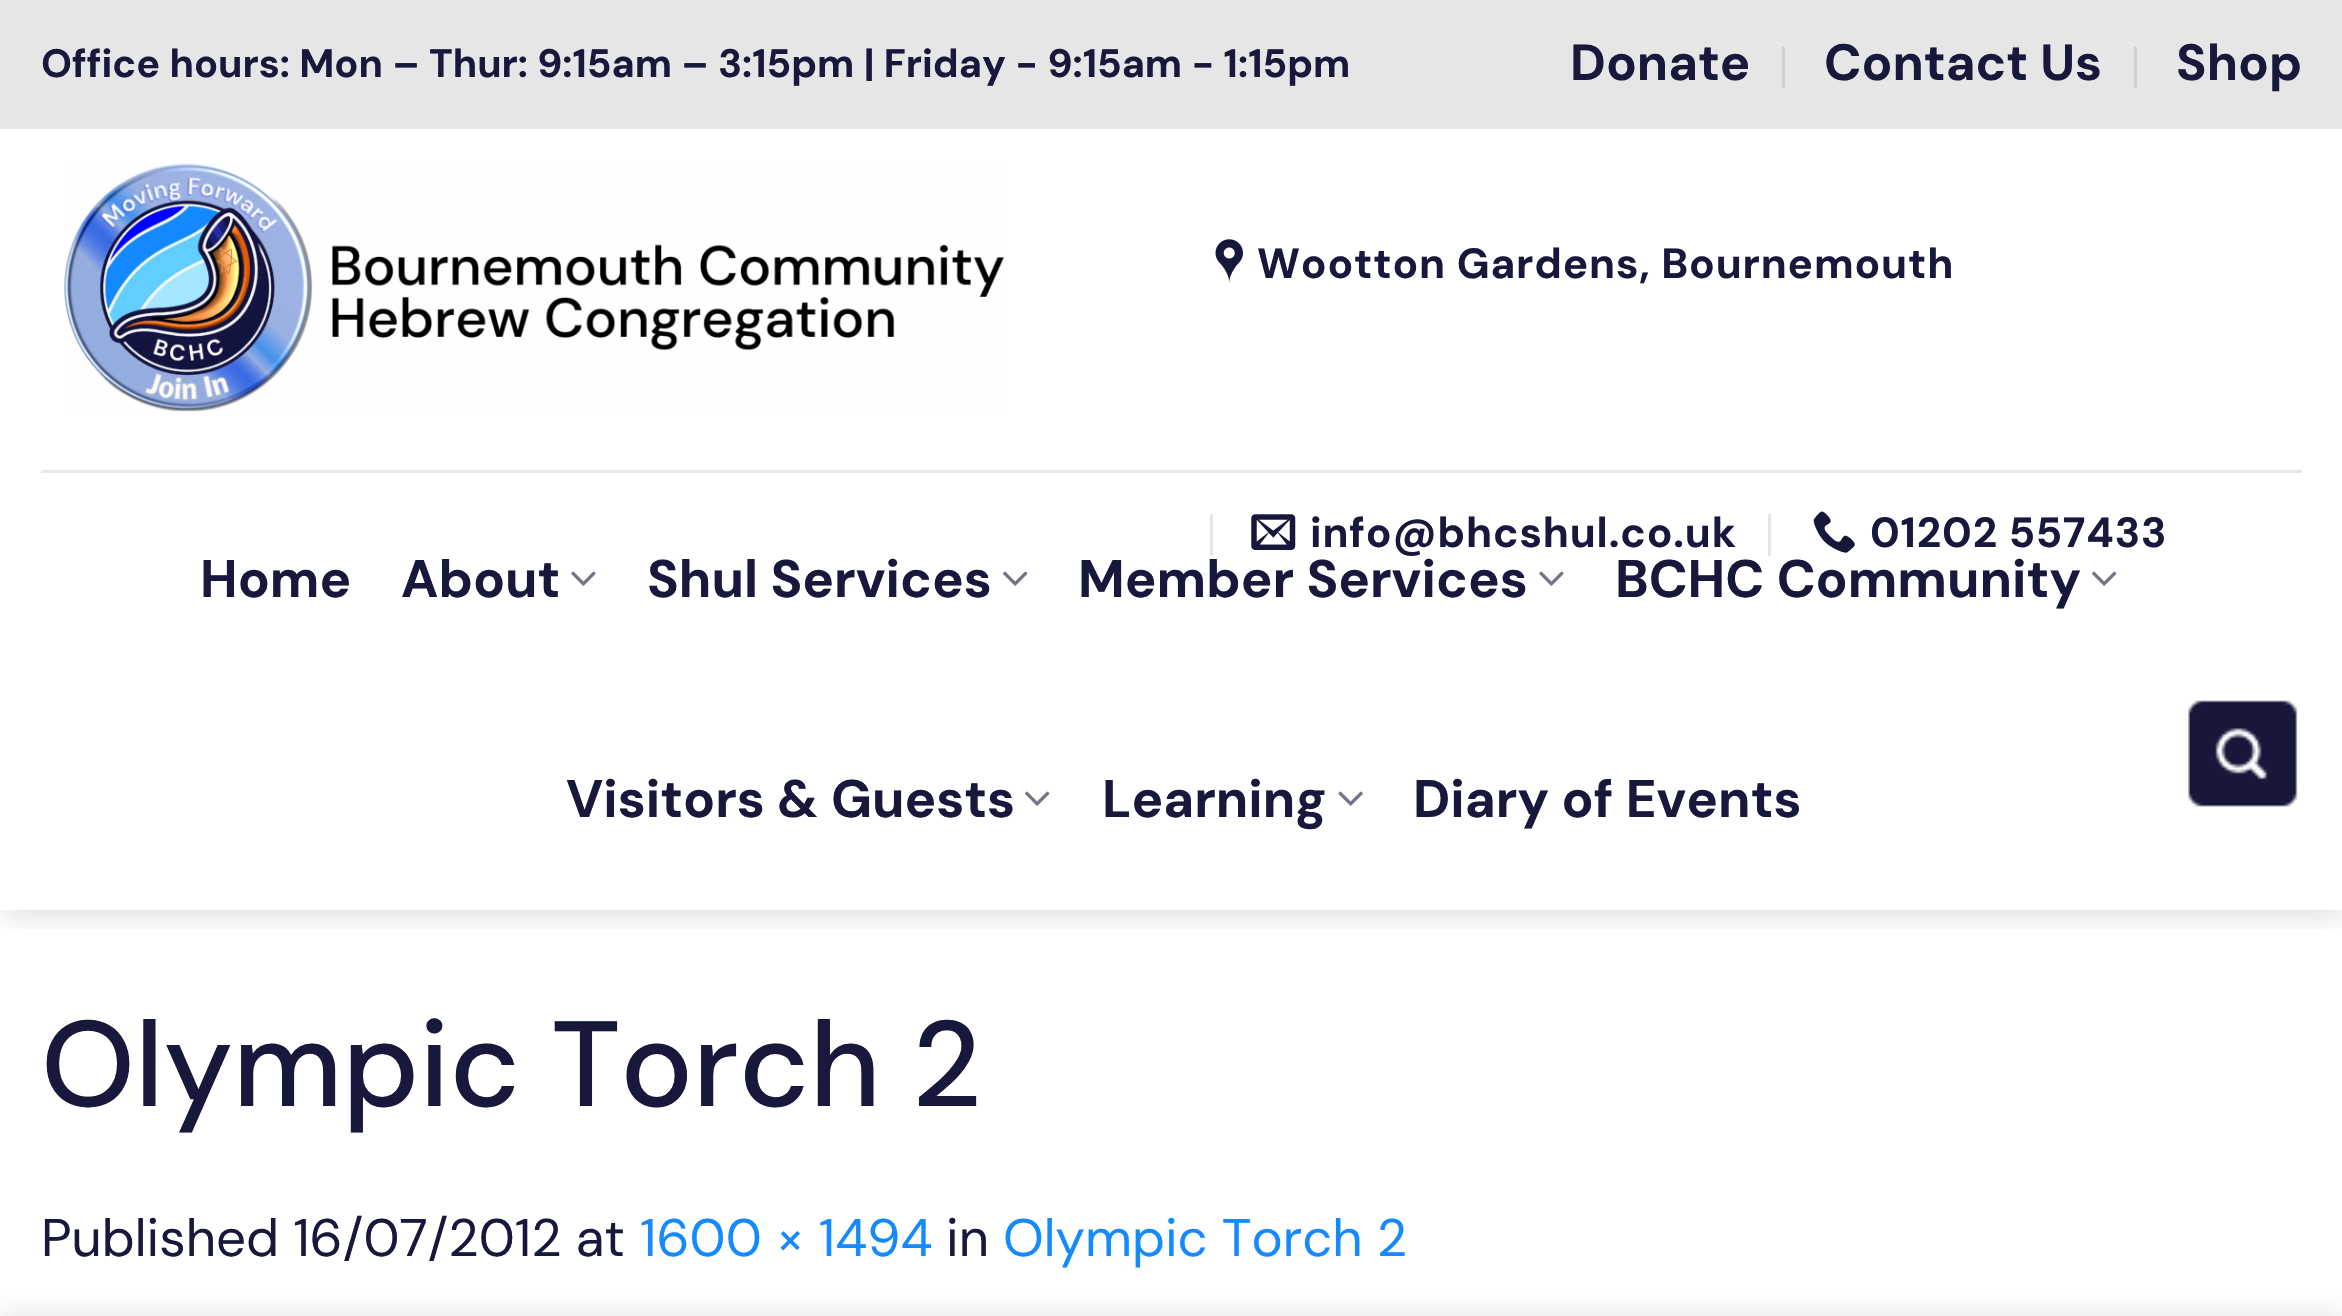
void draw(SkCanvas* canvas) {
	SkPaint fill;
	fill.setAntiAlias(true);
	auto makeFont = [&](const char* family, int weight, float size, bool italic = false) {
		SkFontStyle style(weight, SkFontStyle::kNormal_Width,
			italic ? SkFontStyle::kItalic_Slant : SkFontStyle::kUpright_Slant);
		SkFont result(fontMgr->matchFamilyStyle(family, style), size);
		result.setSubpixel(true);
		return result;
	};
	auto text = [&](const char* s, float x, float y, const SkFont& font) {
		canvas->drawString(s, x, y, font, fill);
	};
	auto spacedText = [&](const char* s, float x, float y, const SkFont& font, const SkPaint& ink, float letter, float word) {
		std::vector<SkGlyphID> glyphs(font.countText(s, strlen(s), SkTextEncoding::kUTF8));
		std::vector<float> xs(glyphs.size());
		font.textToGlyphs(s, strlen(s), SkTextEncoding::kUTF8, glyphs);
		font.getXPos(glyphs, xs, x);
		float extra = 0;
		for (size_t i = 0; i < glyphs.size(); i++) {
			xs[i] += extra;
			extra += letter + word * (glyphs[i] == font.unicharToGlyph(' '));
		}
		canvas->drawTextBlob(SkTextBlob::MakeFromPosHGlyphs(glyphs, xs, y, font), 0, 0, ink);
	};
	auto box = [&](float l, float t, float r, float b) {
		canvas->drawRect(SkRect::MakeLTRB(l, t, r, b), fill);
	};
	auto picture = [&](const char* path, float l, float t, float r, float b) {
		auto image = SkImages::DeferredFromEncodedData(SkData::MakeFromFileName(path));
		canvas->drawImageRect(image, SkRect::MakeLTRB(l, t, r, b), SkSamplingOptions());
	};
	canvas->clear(0xFFFFFFFF);
	canvas->save();
	canvas->clipRect(SkRect::MakeLTRB(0, 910, 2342, 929));
	fill.setColor(0x26000000);
	fill.setMaskFilter(SkMaskFilter::MakeBlur(kNormal_SkBlurStyle, 14));
	canvas->drawRect(SkRect::MakeLTRB(3, 3, 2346, 913), fill);
	fill.setMaskFilter(nullptr);
	canvas->restore();
	fill.setColor(0xFFE6E6E6);
	box(0, 0, 2342, 129);
	fill.setColor(0xFFCFCFCF);
	box(1782, 47, 1785, 88);
	box(2134, 47, 2137, 88);
	picture("image0.png", 64, 163, 1005, 412);
	picture("image1.png", 1215, 239, 1243, 283);
	fill.setColor(0xFFE6E6E6);
	box(1210, 514, 1213, 556);
	picture("image2.png", 1251, 514, 1296, 550);
	box(1768, 514, 1771, 556);
	picture("image3.png", 1813, 511, 1855, 553);
	picture("image4.png", 2188, 700, 2298, 807);
	fill.setColor(0xFFE8E8EB);
	box(41, 470, 2302, 473);
	picture("image5.png", 571, 571, 596, 586);
	picture("image6.png", 1003, 571, 1028, 586);
	picture("image5.png", 1539, 571, 1564, 586);
	picture("image6.png", 2092, 571, 2117, 586);
	picture("image6.png", 1025, 791, 1050, 806);
	picture("image7.png", 1338, 791, 1363, 806);
	fill.setColor(0x24000000);
	fill.setMaskFilter(SkMaskFilter::MakeBlur(kNormal_SkBlurStyle, 12.5f));
	canvas->drawRect(SkRect::MakeLTRB(0, 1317, 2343, 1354), fill);
	fill.setMaskFilter(nullptr);
	auto font1 = makeFont("DM Sans", 700, 39.6f);
	fill.setColor(0xFF17183B);
	text("Office hours: Mon – Thur: 9:15am – 3:15pm | Friday - 9:15am - 1:15pm", 41, 77, font1);
	auto font2 = makeFont("DM Sans", 700, 50.75f);
	text("Donate", 1570, 80, font2);
	text("Contact Us", 1824, 80, font2);
	text("Shop", 2176, 80, font2);
	auto font3 = makeFont("DM Sans", 700, 42.25f);
	spacedText("Wootton Gardens, Bournemouth", 1257, 278, font3, fill, 0.85f, 0);
	spacedText("info@bhcshul.co.uk", 1310, 547, font3, fill, 0.85f, 0);
	spacedText("01202 557433", 1870, 547, font3, fill, 0.85f, 0);
	auto font4 = makeFont("DM Sans", 700, 52.75f);
	text("Home", 200, 597, font4);
	text("About", 401, 597, font4);
	text("Shul Services", 647, 597, font4);
	text("Member Services", 1078, 597, font4);
	text("BCHC Community", 1615, 597, font4);
	text("Visitors & Guests", 566, 817, font4);
	text("Learning", 1102, 817, font4);
	text("Diary of Events", 1413, 817, font4);
	auto font5 = makeFont("DM Sans", 500, 121);
	text("Olympic Torch 2", 41, 1106, font5);
	auto font6 = makeFont("DM Sans", 400, 52.75f);
	text("Published 16/07/2012 at", 41, 1256, font6);
	fill.setColor(0xFF158AFF);
	text("1600 × 1494", 640, 1256, font6);
	fill.setColor(0xFF17183B);
	text("in", 946, 1256, font6);
	fill.setColor(0xFF158AFF);
	text("Olympic Torch 2", 1003, 1256, font6);
}
